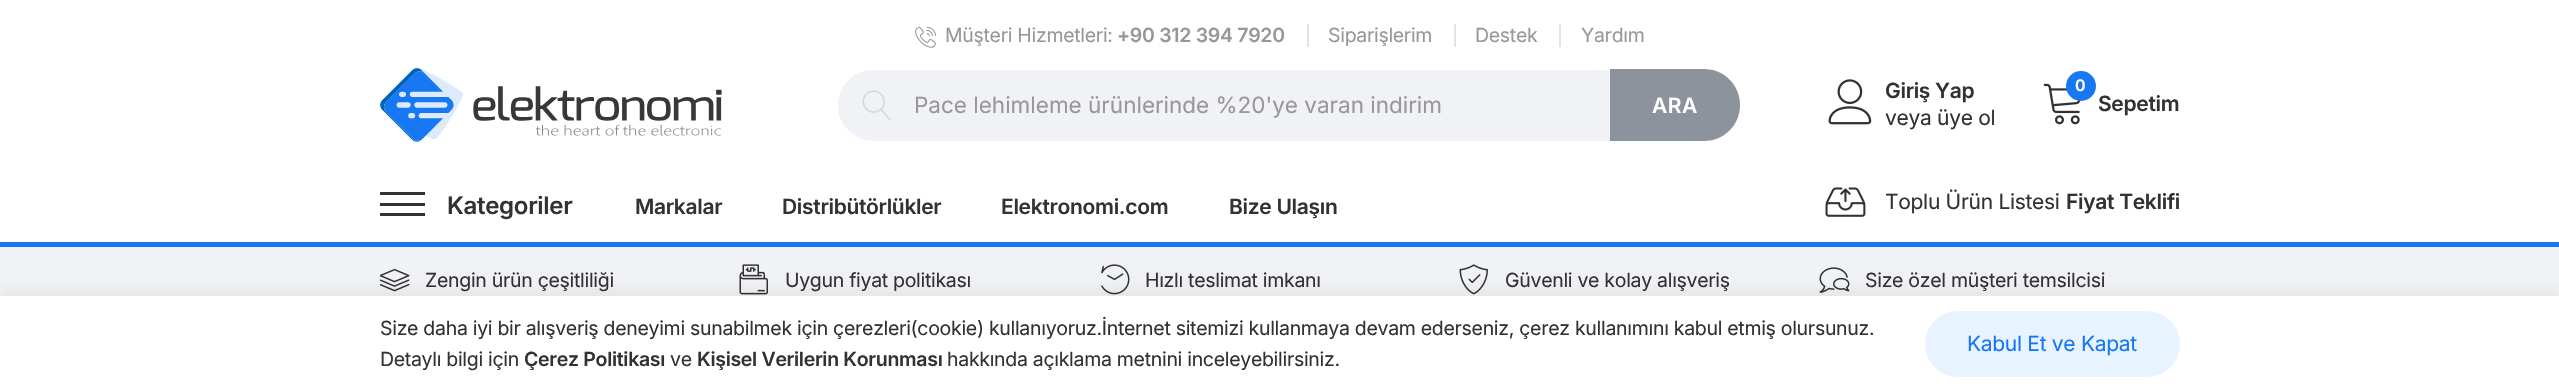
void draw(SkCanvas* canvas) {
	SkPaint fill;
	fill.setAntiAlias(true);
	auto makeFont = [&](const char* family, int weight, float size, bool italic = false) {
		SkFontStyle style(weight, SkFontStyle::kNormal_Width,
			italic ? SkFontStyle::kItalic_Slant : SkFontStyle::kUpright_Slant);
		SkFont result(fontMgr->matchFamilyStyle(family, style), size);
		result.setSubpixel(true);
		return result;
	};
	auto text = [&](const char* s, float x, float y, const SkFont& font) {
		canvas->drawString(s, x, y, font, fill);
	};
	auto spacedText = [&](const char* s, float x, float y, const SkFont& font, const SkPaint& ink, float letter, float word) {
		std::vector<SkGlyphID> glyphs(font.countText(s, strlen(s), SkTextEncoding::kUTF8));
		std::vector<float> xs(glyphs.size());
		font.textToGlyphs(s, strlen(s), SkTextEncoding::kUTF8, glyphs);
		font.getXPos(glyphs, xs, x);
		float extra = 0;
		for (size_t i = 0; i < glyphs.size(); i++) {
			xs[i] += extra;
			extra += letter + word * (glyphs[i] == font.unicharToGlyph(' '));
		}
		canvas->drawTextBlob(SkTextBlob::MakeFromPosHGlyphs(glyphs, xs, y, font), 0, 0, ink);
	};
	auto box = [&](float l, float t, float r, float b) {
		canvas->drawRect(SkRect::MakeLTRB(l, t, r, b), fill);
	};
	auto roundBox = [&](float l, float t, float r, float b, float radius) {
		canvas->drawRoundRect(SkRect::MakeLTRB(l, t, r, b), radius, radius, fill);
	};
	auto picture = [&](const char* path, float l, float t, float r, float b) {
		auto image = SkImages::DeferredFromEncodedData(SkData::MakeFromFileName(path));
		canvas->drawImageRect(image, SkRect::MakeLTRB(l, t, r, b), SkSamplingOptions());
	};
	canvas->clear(0xFFF0F2F5);
	fill.setColor(0xFFFFFFFF);
	box(0, 0, 2559, 242);
	picture("image0.png", 915, 26, 936, 48);
	fill.setColor(0xFFE0E4E8);
	box(1307, 24, 1309, 47);
	box(1454, 24, 1456, 47);
	box(1559, 24, 1561, 47);
	picture("image1.png", 380, 68, 722, 142);
	fill.setColor(0xFFF0F2F5);
	canvas->drawRoundRect(SkRect::MakeLTRB(834, 66, 1744, 145), 39.5f, 39.5f, fill);
	fill.setStyle(SkPaint::kStroke_Style);
	fill.setStrokeWidth(8);
	fill.setColor(0xFFFFFFFF);
	canvas->drawRoundRect(SkRect::MakeLTRB(834, 66, 1744, 145), 39.5f, 39.5f, fill);
	picture("image2.png", 862, 90, 891, 121);
	fill.setStyle(SkPaint::kFill_Style);
	fill.setColor(0xFF8C939D);
	canvas->drawPath(SkPathBuilder().moveTo(1610, 69).lineTo(1704, 69).cubicTo(1724, 69, 1740, 85, 1740, 105).cubicTo(1740, 125, 1724, 141, 1704, 141).lineTo(1610, 141).close().detach(), fill);
	picture("image3.png", 1828, 79, 1872, 125);
	picture("image4.png", 2043, 83, 2081, 125);
	fill.setColor(0xFF1877F2);
	canvas->drawCircle(2081, 86, 15, fill);
	fill.setColor(0xFF323232);
	box(380, 192, 425, 195);
	box(380, 203, 425, 206);
	box(380, 213, 425, 216);
	picture("image5.png", 1825, 187, 1866, 217);
	fill.setColor(0xFF1877F2);
	box(0, 242, 2559, 247);
	picture("image6.png", 380, 268, 410, 292);
	picture("image7.png", 739, 264, 768, 295);
	picture("image8.png", 1101, 264, 1130, 295);
	picture("image9.png", 1459, 264, 1488, 295);
	picture("image10.png", 1819, 267, 1850, 293);
	fill.setColor(0x0D000000);
	fill.setMaskFilter(SkMaskFilter::MakeBlur(kNormal_SkBlurStyle, 6));
	canvas->drawRect(SkRect::MakeLTRB(0, 290, 2559, 386), fill);
	fill.setMaskFilter(nullptr);
	fill.setColor(0xFFFFFFFF);
	box(0, 296, 2559, 391);
	fill.setColor(0xFFE7F3FF);
	roundBox(1925, 311, 2180, 377, 33);
	auto font1 = makeFont("Inter", 400, 19.5f);
	fill.setColor(0xFF989898);
	spacedText("Müşteri Hizmetleri:", 945, 42, font1, fill, -0.3f, 0);
	auto font2 = makeFont("Inter", 600, 19.5f);
	spacedText("+90 312 394 7920", 1117, 42, font2, fill, -0.3f, 0);
	spacedText("Siparişlerim", 1328, 42, font1, fill, -0.3f, 0);
	spacedText("Destek", 1475, 42, font1, fill, -0.3f, 0);
	spacedText("Yardım", 1581, 42, font1, fill, -0.3f, 0);
	auto font3 = makeFont("Inter", 400, 22.5f);
	text("Pace lehimleme ürünlerinde %20'ye varan indirim", 914, 113, font3);
	auto font4 = makeFont("Inter", 600, 21);
	fill.setColor(0xFFFFFFFF);
	spacedText("ARA", 1652, 113, font4, fill, 0.5f, 0);
	fill.setColor(0xFF323232);
	spacedText("Giriş Yap", 1885, 98, font4, fill, -0.3f, 0);
	auto font5 = makeFont("Inter", 400, 21);
	spacedText("veya üye ol", 1885, 125, font5, fill, -0.3f, 0);
	auto font6 = makeFont("Inter", 600, 16);
	fill.setColor(0xFFFFFFFF);
	spacedText("0", 2075, 91, font6, fill, -0.3f, 0);
	fill.setColor(0xFF323232);
	spacedText("Sepetim", 2098, 111, font4, fill, -0.3f, 0);
	auto font7 = makeFont("Inter", 600, 24);
	spacedText("Kategoriler", 447, 214, font7, fill, -0.3f, 0);
	spacedText("Markalar", 635, 214, font4, fill, -0.3f, 0);
	spacedText("Distribütörlükler", 782, 214, font4, fill, -0.3f, 0);
	spacedText("Elektronomi.com", 1001, 214, font4, fill, -0.3f, 0);
	spacedText("Bize Ulaşın", 1229, 214, font4, fill, -0.3f, 0);
	spacedText("Toplu Ürün Listesi", 1885, 209, font5, fill, -0.3f, 0);
	spacedText("Fiyat Teklifi", 2066, 209, font4, fill, -0.3f, 0);
	spacedText("Zengin ürün çeşitliliği", 425, 287, font1, fill, -0.3f, 0);
	spacedText("Uygun fiyat politikası", 785, 287, font1, fill, -0.3f, 0);
	spacedText("Hızlı teslimat imkanı", 1145, 287, font1, fill, -0.3f, 0);
	spacedText("Güvenli ve kolay alışveriş", 1505, 287, font1, fill, -0.3f, 0);
	spacedText("Size özel müşteri temsilcisi", 1865, 287, font1, fill, -0.3f, 0);
	spacedText("Size daha iyi bir alışveriş deneyimi sunabilmek için çerezleri(cookie) kullanıyoruz.İnternet sitemizi kullanmaya devam ederseniz, çerez kullanımını kabul etmiş olursunuz.", 380, 335, font1, fill, -0.3f, 0);
	spacedText("Detaylı bilgi için", 380, 366, font1, fill, -0.3f, 0);
	spacedText("Çerez Politikası", 524, 366, font2, fill, -0.3f, 0);
	spacedText("ve", 670, 366, font1, fill, -0.3f, 0);
	spacedText("Kişisel Verilerin Korunması", 697, 366, font2, fill, -0.3f, 0);
	spacedText("hakkında açıklama metnini inceleyebilirsiniz.", 947, 366, font1, fill, -0.3f, 0);
	fill.setColor(0xFF1676F3);
	spacedText("Kabul Et ve Kapat", 1967, 351, font5, fill, -0.3f, 0);
}
